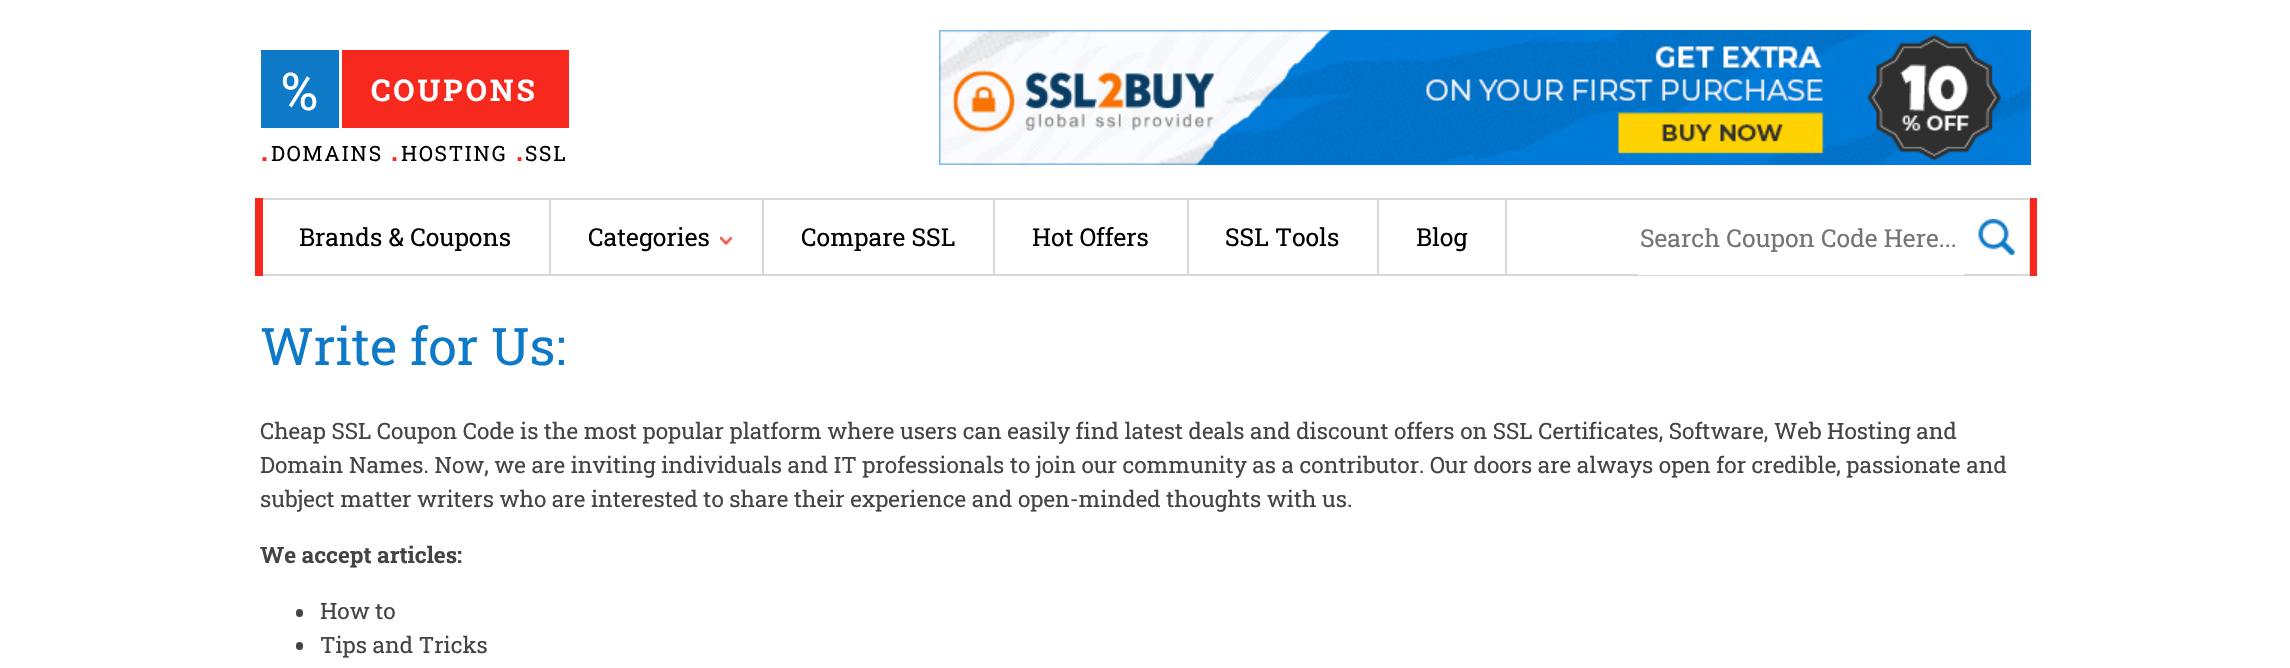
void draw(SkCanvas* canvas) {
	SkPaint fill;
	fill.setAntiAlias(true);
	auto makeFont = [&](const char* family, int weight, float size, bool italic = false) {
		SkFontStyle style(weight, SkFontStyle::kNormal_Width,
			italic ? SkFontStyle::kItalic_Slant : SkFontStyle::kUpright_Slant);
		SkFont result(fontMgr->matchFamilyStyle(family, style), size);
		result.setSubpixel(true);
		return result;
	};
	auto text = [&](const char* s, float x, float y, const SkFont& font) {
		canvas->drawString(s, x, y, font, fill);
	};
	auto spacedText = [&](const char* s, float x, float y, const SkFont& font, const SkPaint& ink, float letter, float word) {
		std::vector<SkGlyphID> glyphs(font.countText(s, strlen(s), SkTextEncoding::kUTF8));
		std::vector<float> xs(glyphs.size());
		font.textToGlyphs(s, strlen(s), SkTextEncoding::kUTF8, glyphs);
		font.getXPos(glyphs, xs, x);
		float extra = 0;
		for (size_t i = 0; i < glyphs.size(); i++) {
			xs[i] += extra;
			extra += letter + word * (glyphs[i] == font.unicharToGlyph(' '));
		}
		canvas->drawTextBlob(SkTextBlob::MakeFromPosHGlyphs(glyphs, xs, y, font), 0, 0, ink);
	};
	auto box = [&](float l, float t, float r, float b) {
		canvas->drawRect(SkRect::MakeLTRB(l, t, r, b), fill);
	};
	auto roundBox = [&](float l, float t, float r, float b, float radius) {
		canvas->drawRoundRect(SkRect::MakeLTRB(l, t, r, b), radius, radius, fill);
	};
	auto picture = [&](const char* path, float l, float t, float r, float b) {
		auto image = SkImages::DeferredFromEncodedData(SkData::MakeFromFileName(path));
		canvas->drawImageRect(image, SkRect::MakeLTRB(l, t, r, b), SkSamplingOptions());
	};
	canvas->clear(0xFFFFFFFF);
	fill.setColor(0xFF0E79C7);
	box(261, 50, 339, 128);
	fill.setColor(0xFFF7291F);
	box(342, 50, 569, 128);
	picture("image0.png", 939, 30, 2031, 165);
	fill.setStyle(SkPaint::kStroke_Style);
	fill.setStrokeWidth(2);
	fill.setColor(0xFFD8D8D8);
	canvas->drawRect(SkRect::MakeLTRB(262, 199, 2030, 275), fill);
	fill.setStyle(SkPaint::kFill_Style);
	fill.setColor(0xFFF7291F);
	box(255, 198, 263, 276);
	fill.setColor(0xFFD8D8D8);
	box(549, 200, 551, 275);
	box(762, 200, 764, 275);
	picture("image1.png", 720, 237, 732, 245);
	box(993, 200, 995, 275);
	box(1187, 200, 1189, 275);
	box(1377, 200, 1379, 275);
	box(1505, 200, 1507, 275);
	fill.setColor(0xFFFFFFFF);
	box(1638, 274, 1964, 275);
	picture("image2.png", 1978, 219, 2015, 255);
	fill.setColor(0xFFF7291F);
	box(2030, 198, 2037, 276);
	fill.setColor(0xFF444444);
	roundBox(296, 609, 303, 617, 3.5f);
	roundBox(296, 642, 303, 650, 3.5f);
	auto font1 = makeFont("Roboto Slab", 400, 52);
	fill.setColor(0xFFFFFFFF);
	text("%", 281, 110, font1);
	auto font2 = makeFont("Roboto Slab", 700, 30);
	spacedText("COUPONS", 371, 101, font2, fill, 3, 0);
	auto font3 = makeFont("Roboto Slab", 400, 38);
	fill.setColor(0xFFF7291F);
	spacedText(".", 260, 161, font3, fill, 1.75f, 0);
	auto font4 = makeFont("Roboto Slab", 400, 21);
	fill.setColor(0xFF000000);
	spacedText("DOMAINS", 271, 161, font4, fill, 1.75f, 0);
	fill.setColor(0xFFF7291F);
	spacedText(".", 390, 161, font3, fill, 1.75f, 0);
	fill.setColor(0xFF000000);
	spacedText("HOSTING", 401, 161, font4, fill, 1.75f, 0);
	fill.setColor(0xFFF7291F);
	spacedText(".", 515, 161, font3, fill, 1.75f, 0);
	fill.setColor(0xFF000000);
	spacedText("SSL", 525, 161, font4, fill, 1.75f, 0);
	auto font5 = makeFont("Roboto Slab", 400, 24.75f);
	text("Brands & Coupons", 299, 246, font5);
	text("Categories", 588, 246, font5);
	text("Compare SSL", 801, 246, font5);
	text("Hot Offers", 1032, 246, font5);
	text("SSL Tools", 1225, 246, font5);
	text("Blog", 1416, 246, font5);
	fill.setColor(0xFF757575);
	text("Search Coupon Code Here...", 1640, 247, font5);
	auto font6 = makeFont("Roboto Slab", 400, 51.75f);
	fill.setColor(0xFF0E79C7);
	text("Write for Us:", 260, 365, font6);
	auto font7 = makeFont("Roboto Slab", 400, 22.5f);
	fill.setColor(0xFF444444);
	text("Cheap SSL Coupon Code is the most popular platform where users can easily find latest deals and discount offers on SSL Certificates, Software, Web Hosting and", 260, 439, font7);
	text("Domain Names. Now, we are inviting individuals and IT professionals to join our community as a contributor. Our doors are always open for credible, passionate and", 260, 473, font7);
	text("subject matter writers who are interested to share their experience and open-minded thoughts with us.", 260, 507, font7);
	auto font8 = makeFont("Roboto Slab", 700, 22.5f);
	text("We accept articles:", 260, 563, font8);
	text("How to", 320, 619, font7);
	text("Tips and Tricks", 320, 653, font7);
}
